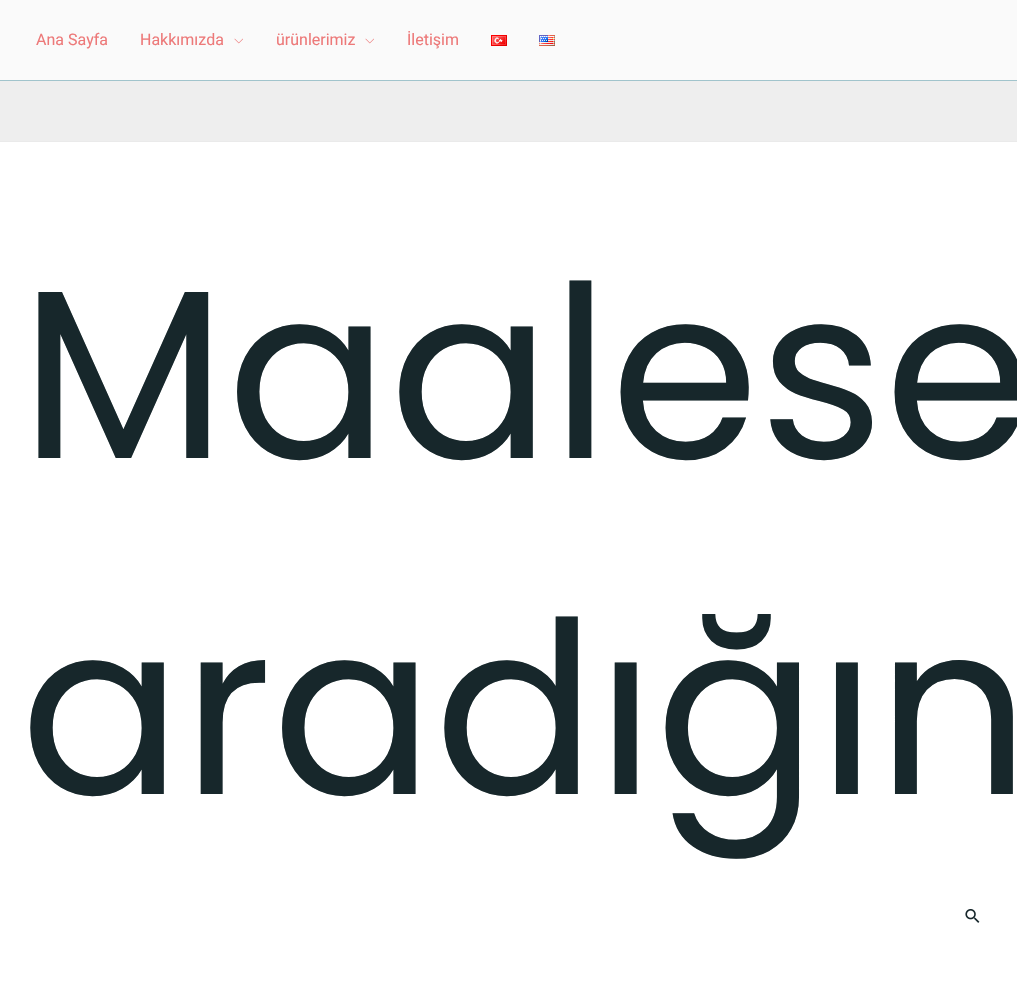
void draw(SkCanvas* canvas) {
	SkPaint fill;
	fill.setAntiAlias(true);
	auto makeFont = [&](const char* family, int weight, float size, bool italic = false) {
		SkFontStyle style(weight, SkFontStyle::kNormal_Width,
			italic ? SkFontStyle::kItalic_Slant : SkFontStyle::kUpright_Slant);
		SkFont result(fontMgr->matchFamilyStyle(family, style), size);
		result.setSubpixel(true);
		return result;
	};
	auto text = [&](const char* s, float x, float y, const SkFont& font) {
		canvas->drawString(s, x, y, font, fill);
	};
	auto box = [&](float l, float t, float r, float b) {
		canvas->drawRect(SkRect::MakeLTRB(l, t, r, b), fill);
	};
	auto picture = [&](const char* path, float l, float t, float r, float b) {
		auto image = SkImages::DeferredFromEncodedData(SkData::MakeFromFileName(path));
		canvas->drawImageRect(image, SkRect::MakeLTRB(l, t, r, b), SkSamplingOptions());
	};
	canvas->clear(0xFFFFFFFF);
	fill.setColor(0xFFFAFAFA);
	box(0, 0, 1017, 80);
	fill.setColor(0xFFA1C4CC);
	box(0, 80, 1017, 81);
	picture("image0.png", 234, 38, 243, 44);
	picture("image0.png", 365, 38, 374, 44);
	picture("image1.png", 491, 35, 507, 46);
	picture("image2.png", 539, 35, 555, 46);
	fill.setColor(0xFFEEEEEE);
	box(0, 81, 1017, 141);
	fill.setColor(0xFFEAEAEA);
	box(0, 141, 1017, 142);
	picture("image3.png", 965, 909, 980, 923);
	auto font1 = makeFont("Roboto", 400, 16);
	fill.setColor(0xFFED7979);
	text("Ana Sayfa", 36, 45, font1);
	text("Hakkımızda", 140, 45, font1);
	text("ürünlerimiz", 276, 45, font1);
	text("İletişim", 407, 45, font1);
	auto font2 = makeFont("Poppins", 400, 240);
	fill.setColor(0xFF17272B);
	text("Maalese", 20, 458, font2);
	text("aradığın", 20, 794, font2);
}
